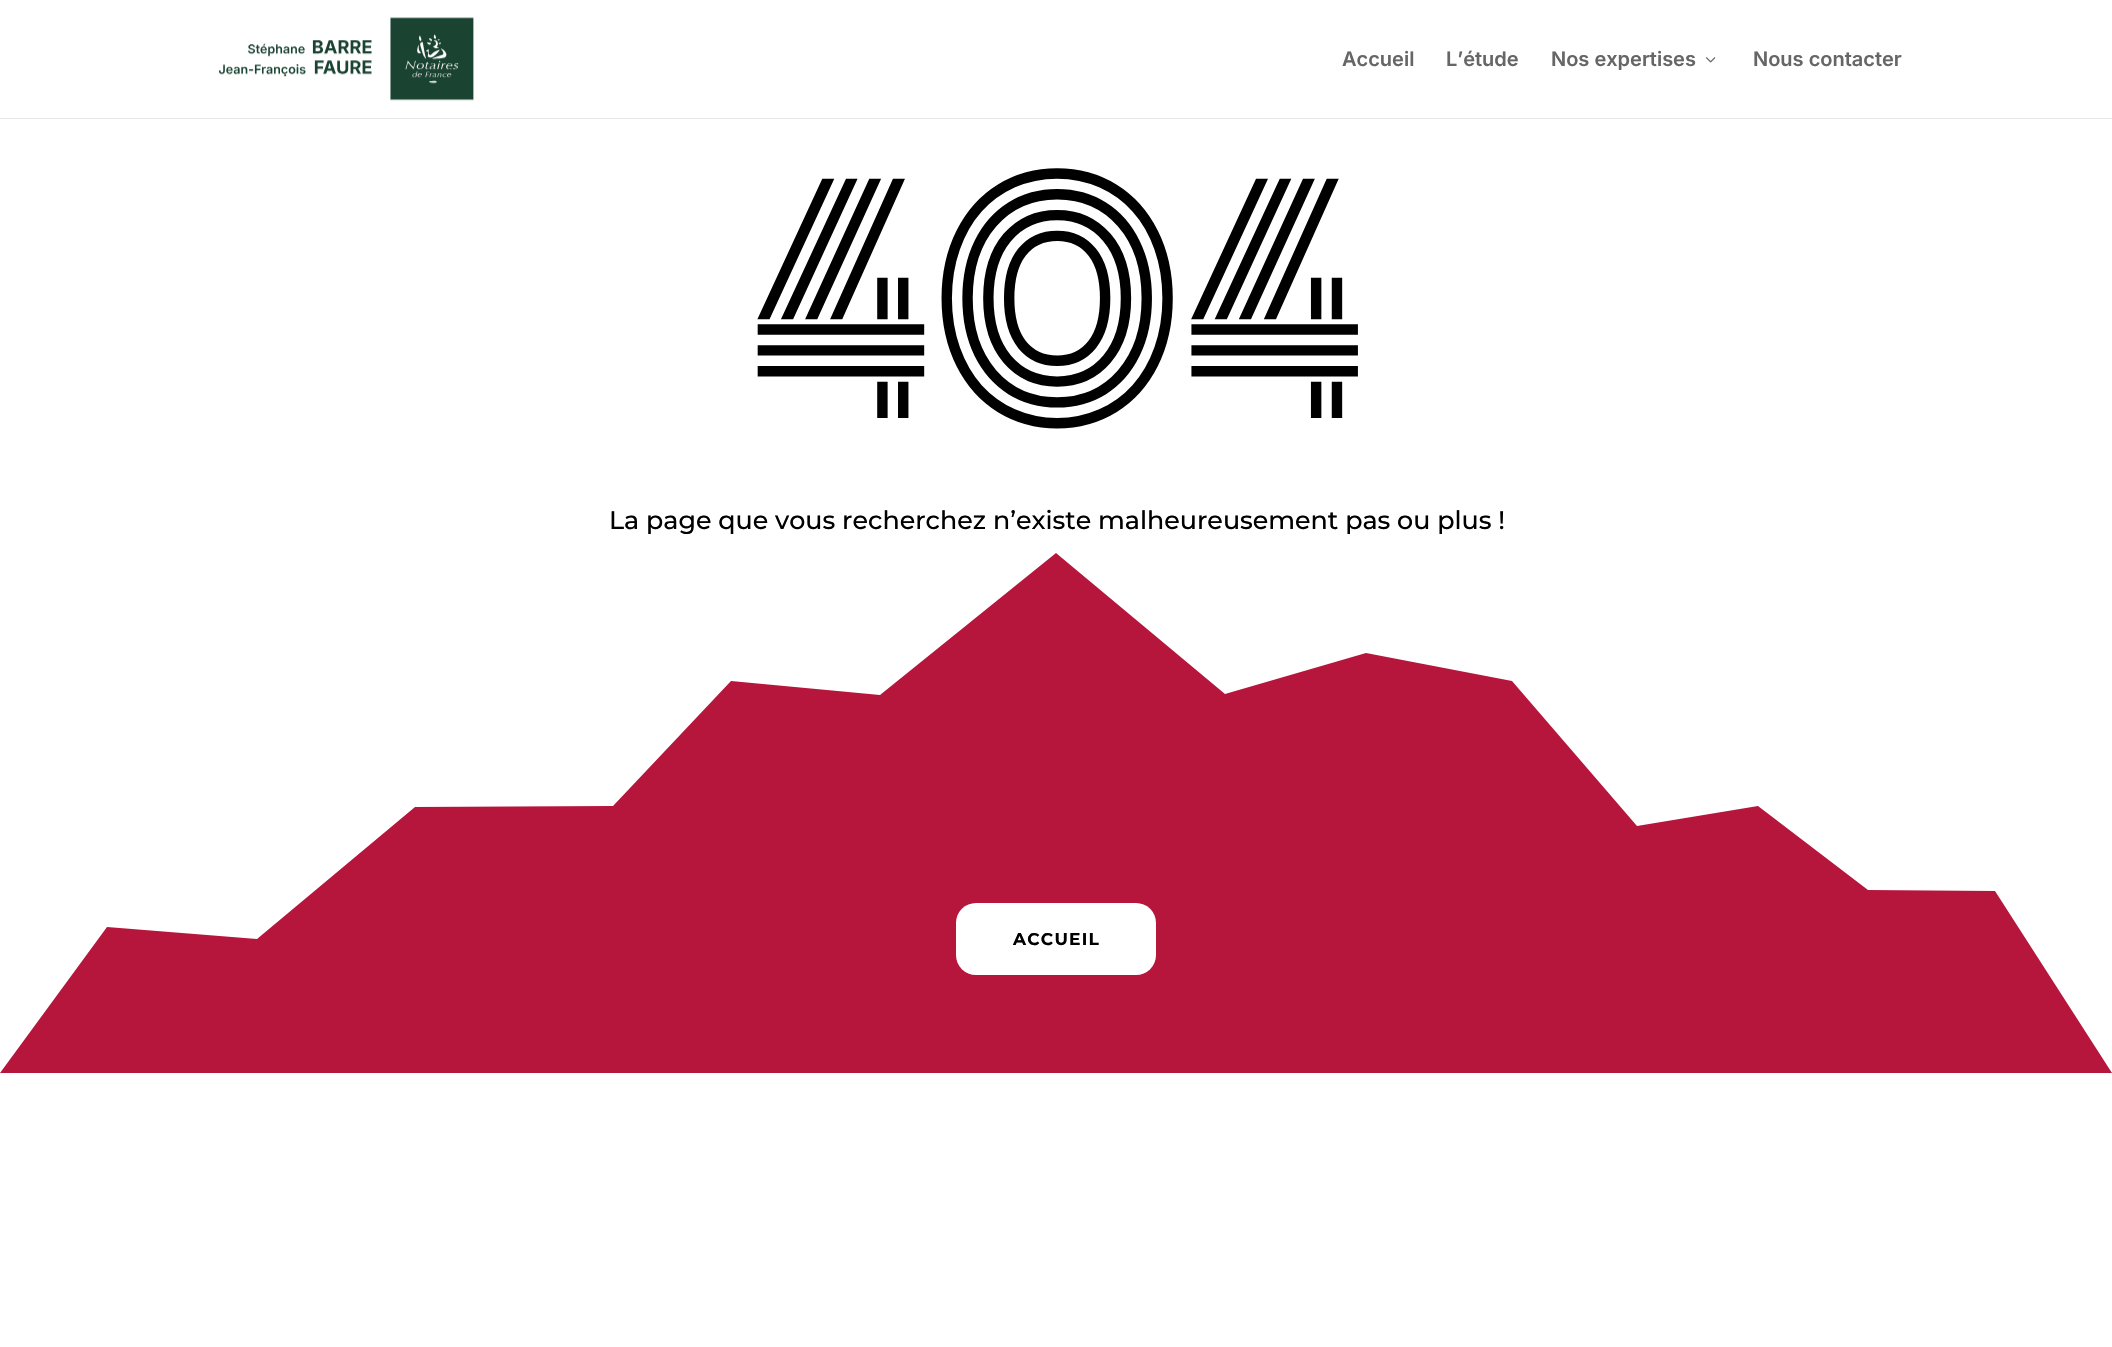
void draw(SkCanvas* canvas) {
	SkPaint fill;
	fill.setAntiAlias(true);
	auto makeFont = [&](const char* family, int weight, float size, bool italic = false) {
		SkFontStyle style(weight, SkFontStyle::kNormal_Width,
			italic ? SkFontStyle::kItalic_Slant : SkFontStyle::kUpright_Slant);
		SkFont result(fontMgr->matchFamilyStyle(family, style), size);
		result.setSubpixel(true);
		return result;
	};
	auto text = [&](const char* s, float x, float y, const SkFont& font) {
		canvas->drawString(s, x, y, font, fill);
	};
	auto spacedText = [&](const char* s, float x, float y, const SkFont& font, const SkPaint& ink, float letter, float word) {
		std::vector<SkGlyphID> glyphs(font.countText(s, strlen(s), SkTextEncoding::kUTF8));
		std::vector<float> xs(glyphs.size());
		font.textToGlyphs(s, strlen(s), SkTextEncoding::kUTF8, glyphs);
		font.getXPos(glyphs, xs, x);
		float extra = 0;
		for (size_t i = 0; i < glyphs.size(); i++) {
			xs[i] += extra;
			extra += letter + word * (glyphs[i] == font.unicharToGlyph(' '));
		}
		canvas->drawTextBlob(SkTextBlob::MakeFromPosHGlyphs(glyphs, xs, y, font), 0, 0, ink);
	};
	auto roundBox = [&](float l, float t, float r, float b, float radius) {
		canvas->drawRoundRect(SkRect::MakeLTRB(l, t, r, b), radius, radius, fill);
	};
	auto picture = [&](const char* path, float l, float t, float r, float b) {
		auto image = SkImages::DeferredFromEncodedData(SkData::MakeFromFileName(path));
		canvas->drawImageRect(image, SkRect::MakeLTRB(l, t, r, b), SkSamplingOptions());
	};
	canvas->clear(0xFFFFFFFF);
	fill.setColor(0xFFE6E6E6);
	canvas->drawPath(SkPathBuilder().moveTo(0, 118).lineTo(0, 119).lineTo(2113, 119).lineTo(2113, 1).lineTo(2112, 1).lineTo(2112, 118).close().detach(), fill);
	picture("image0.png", 218, 17, 474, 101);
	picture("image1.png", 1706, 57, 1716, 63);
	fill.setColor(0xFFB6153C);
	canvas->drawPath(SkPathBuilder().moveTo(257, 939).lineTo(415, 807).lineTo(613, 806).lineTo(731, 681).lineTo(880, 695).lineTo(1056, 553).lineTo(1225, 694).lineTo(1366, 653).lineTo(1512, 681).lineTo(1637, 826).lineTo(1758, 806).lineTo(1868, 890).lineTo(1995, 891).lineTo(2112, 1073).lineTo(0, 1073).lineTo(107, 927).close().detach(), fill);
	fill.setColor(0xFFFFFFFF);
	roundBox(956, 903, 1156, 975, 20);
	auto font1 = makeFont("Inter", 600, 20);
	fill.setColor(0xFF666666);
	text("Accueil", 1342, 66, font1);
	text("L’étude", 1446, 66, font1);
	text("Nos expertises", 1551, 66, font1);
	text("Nous contacter", 1753, 66, font1);
	auto font2 = makeFont("Monoton", 400, 296);
	fill.setColor(0xFF000000);
	text("404", 748, 418, font2);
	auto font3 = makeFont("Montserrat", 500, 25.35f);
	text("La page que vous recherchez n’existe malheureusement pas ou plus !", 609, 529, font3);
	auto font4 = makeFont("Montserrat", 700, 17);
	spacedText("ACCUEIL", 1013, 945, font4, fill, 1.25f, 0);
}
